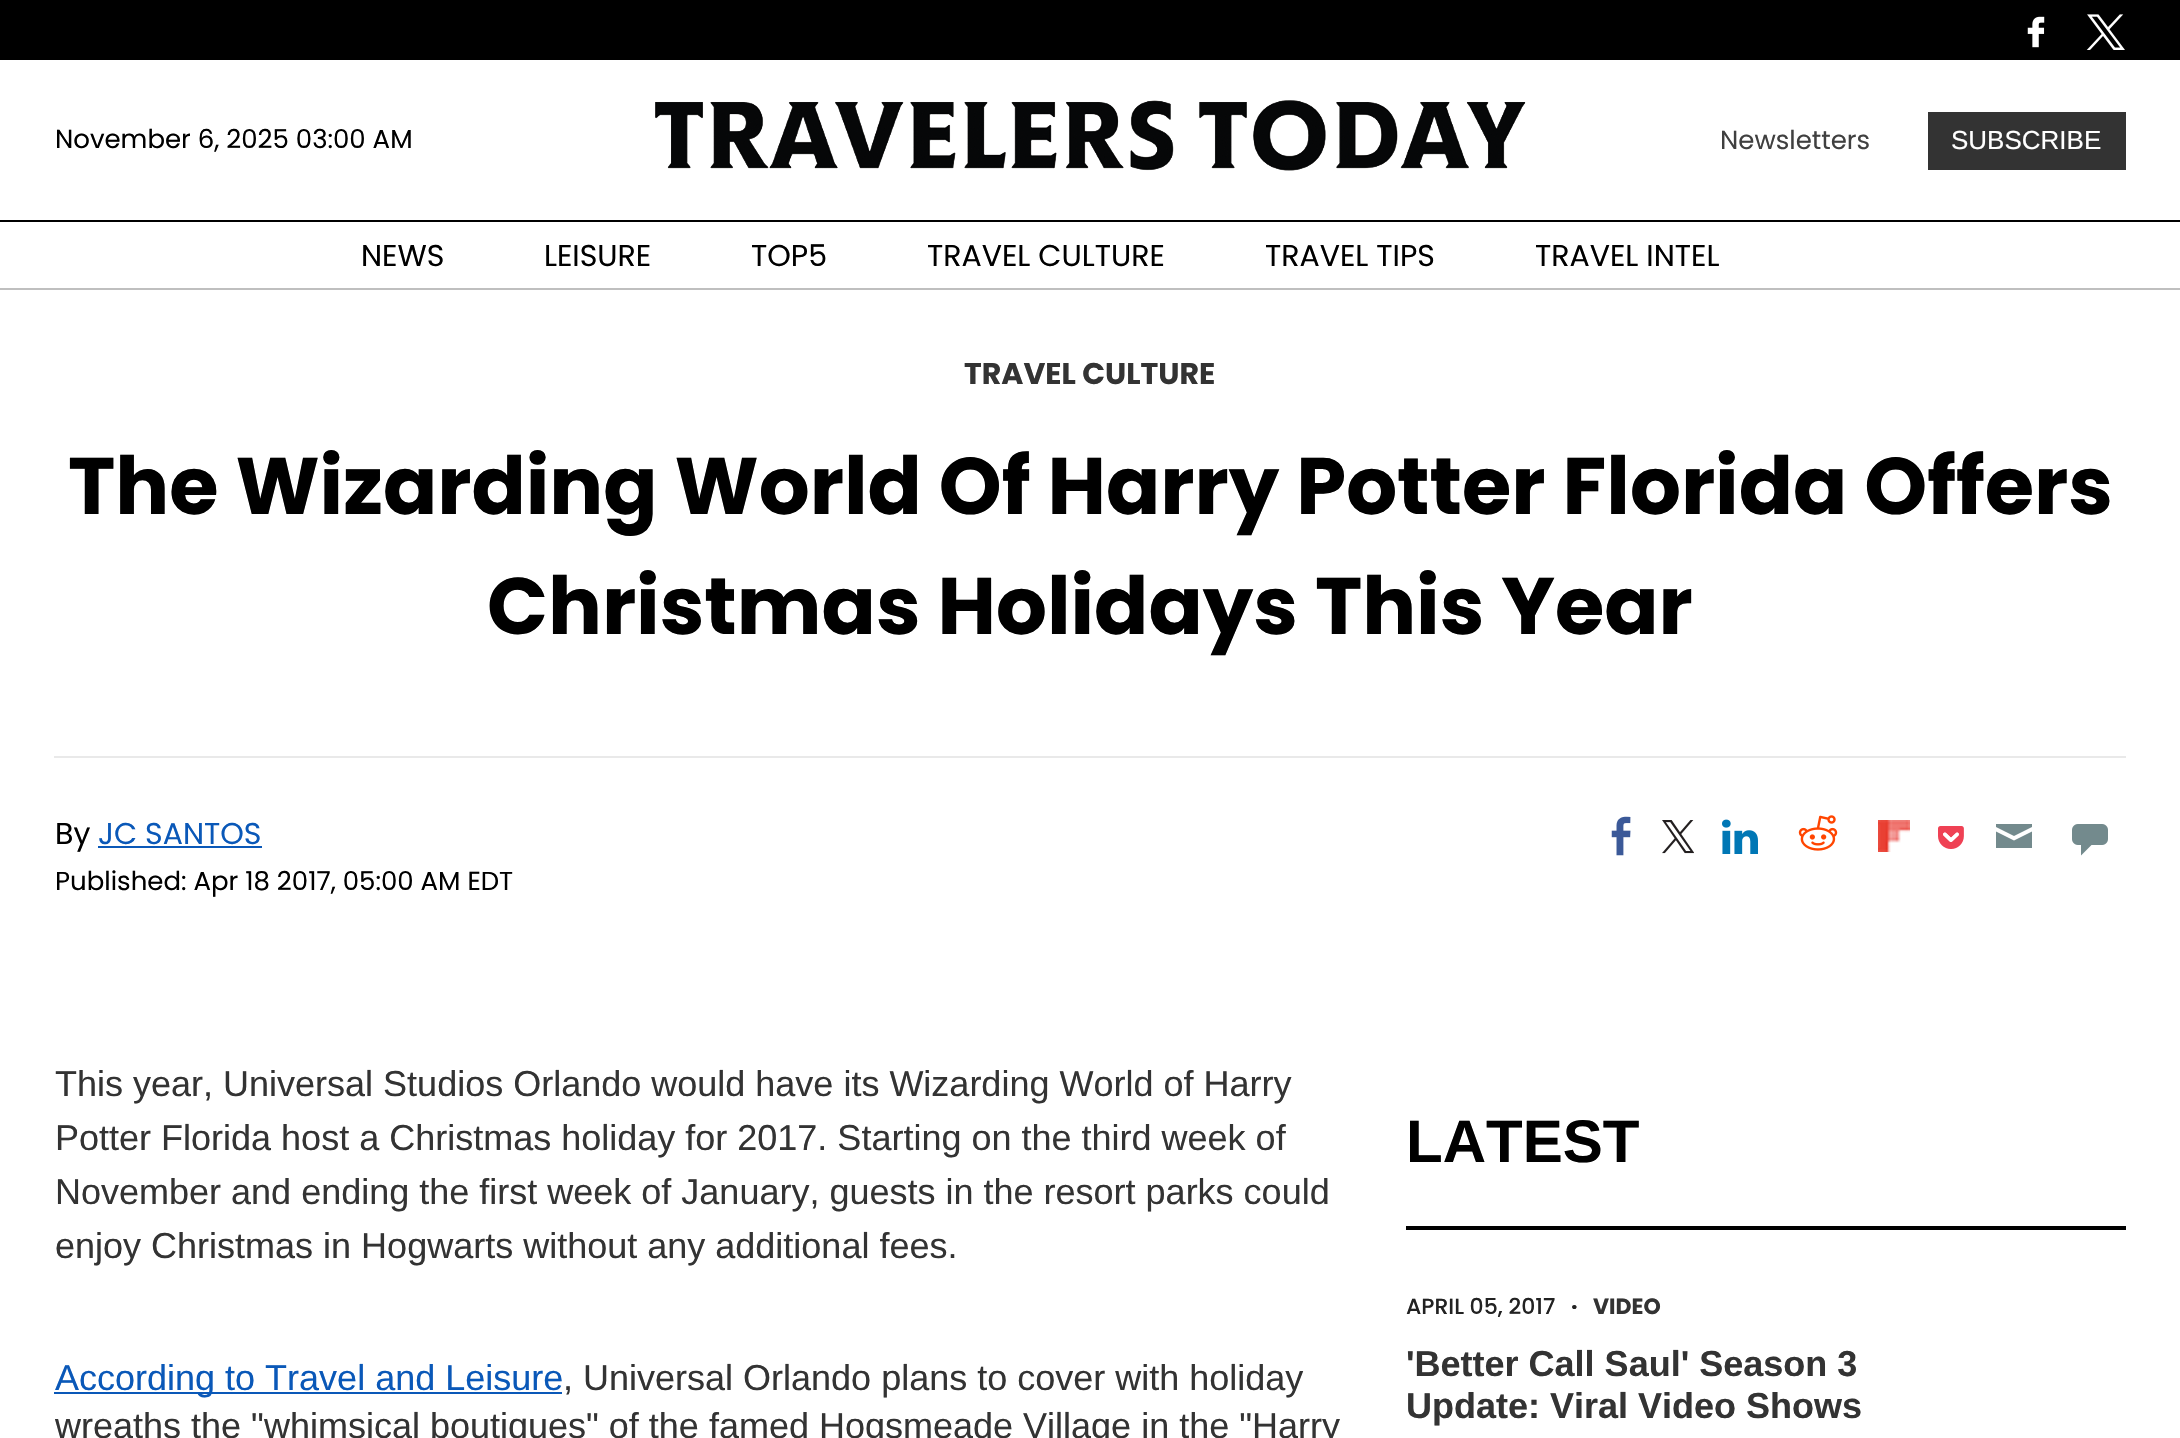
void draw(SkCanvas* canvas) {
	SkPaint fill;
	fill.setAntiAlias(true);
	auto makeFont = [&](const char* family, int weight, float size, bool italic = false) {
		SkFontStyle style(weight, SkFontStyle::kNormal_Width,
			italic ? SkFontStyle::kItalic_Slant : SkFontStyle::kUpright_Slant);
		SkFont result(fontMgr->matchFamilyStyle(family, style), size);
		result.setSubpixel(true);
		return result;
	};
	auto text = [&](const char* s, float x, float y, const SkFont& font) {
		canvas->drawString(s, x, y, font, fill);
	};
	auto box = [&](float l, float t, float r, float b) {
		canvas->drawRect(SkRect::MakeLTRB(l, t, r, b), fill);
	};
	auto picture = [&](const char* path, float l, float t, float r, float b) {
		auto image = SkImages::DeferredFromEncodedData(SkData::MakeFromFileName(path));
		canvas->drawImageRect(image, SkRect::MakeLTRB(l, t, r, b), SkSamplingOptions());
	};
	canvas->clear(0xFFFFFFFF);
	fill.setColor(0xFF000000);
	box(0, 0, 2180, 60);
	picture("image0.png", 2027, 16, 2045, 48);
	picture("image1.png", 2086, 14, 2125, 50);
	box(0, 220, 2180, 222);
	picture("image2.png", 655, 100, 1526, 171);
	fill.setColor(0xFF333333);
	box(1928, 112, 2126, 170);
	fill.setColor(0xFFBFBFBF);
	box(0, 288, 2180, 290);
	fill.setColor(0xFFE9E9E9);
	box(54, 756, 2126, 758);
	fill.setColor(0xFF0A58B8);
	box(98, 846, 262, 848);
	picture("image3.png", 1611, 816, 1631, 856);
	picture("image4.png", 1662, 820, 1694, 854);
	picture("image5.png", 1722, 819, 1758, 854);
	picture("image6.png", 1798, 815, 1838, 851);
	picture("image7.png", 1878, 820, 1910, 852);
	picture("image8.png", 1938, 826, 1964, 849);
	fill.setColor(0xFF738A8D);
	canvas->drawPath(SkPathBuilder().moveTo(1996, 824).lineTo(2032, 824).lineTo(2032, 827).lineTo(2014, 836).lineTo(1996, 827).close().moveTo(1996, 831.5f).lineTo(2014, 840.5f).lineTo(2032, 831.5f).lineTo(2032, 848).lineTo(1996, 848).close().detach(), fill);
	picture("image9.png", 2072, 824, 2108, 856);
	fill.setColor(0xFF0A58B8);
	box(54, 1392, 562, 1394);
	fill.setColor(0xFF000000);
	box(1406, 1226, 2126, 1230);
	auto font1 = makeFont("Poppins", 400, 26);
	text("November 6, 2025 03:00 AM", 55, 148, font1);
	fill.setColor(0xFF404040);
	text("Newsletters", 1720, 149, font1);
	auto font2 = makeFont("Liberation Sans", 400, 26);
	fill.setColor(0xFFFFFFFF);
	text("SUBSCRIBE", 1951, 149, font2);
	auto font3 = makeFont("Poppins", 400, 30);
	fill.setColor(0xFF000000);
	text("NEWS", 361, 266, font3);
	text("LEISURE", 544, 266, font3);
	text("TOP5", 751, 266, font3);
	text("TRAVEL CULTURE", 927, 266, font3);
	text("TRAVEL TIPS", 1265, 266, font3);
	text("TRAVEL INTEL", 1535, 266, font3);
	auto font4 = makeFont("Poppins", 700, 30);
	fill.setColor(0xFF333333);
	text("TRAVEL CULTURE", 964, 384, font4);
	auto font5 = makeFont("Poppins", 700, 80);
	fill.setColor(0xFF000000);
	text("The Wizarding World Of Harry Potter Florida Offers", 68, 514, font5);
	text("Christmas Holidays This Year", 487, 634, font5);
	text("By", 55, 844, font3);
	fill.setColor(0xFF0A58B8);
	text("JC SANTOS", 98, 844, font3);
	fill.setColor(0xFF000000);
	text("Published: Apr 18 2017, 05:00 AM EDT", 55, 890, font1);
	auto font6 = makeFont("Liberation Sans", 400, 36);
	fill.setColor(0xFF333333);
	text("This year, Universal Studios Orlando would have its Wizarding World of Harry", 55, 1096, font6);
	text("Potter Florida host a Christmas holiday for 2017. Starting on the third week of", 55, 1150, font6);
	text("November and ending the first week of January, guests in the resort parks could", 55, 1204, font6);
	text("enjoy Christmas in Hogwarts without any additional fees.", 55, 1258, font6);
	fill.setColor(0xFF0A58B8);
	text("According to Travel and Leisure", 55, 1390, font6);
	fill.setColor(0xFF333333);
	text(", Universal Orlando plans to cover with holiday", 563, 1390, font6);
	text("wreaths the \"whimsical boutiques\" of the famed Hogsmeade Village in the \"Harry", 55, 1438, font6);
	auto font7 = makeFont("Liberation Sans", 700, 60);
	fill.setColor(0xFF000000);
	text("LATEST", 1406, 1162, font7);
	auto font8 = makeFont("Poppins", 500, 22);
	fill.setColor(0xFF222222);
	text("APRIL 05, 2017", 1406, 1314, font8);
	auto font9 = makeFont("Poppins", 700, 22);
	text("·", 1571, 1314, font9);
	fill.setColor(0xFF333333);
	text("VIDEO", 1593, 1314, font9);
	auto font10 = makeFont("Liberation Sans", 700, 36);
	text("'Better Call Saul' Season 3", 1406, 1376, font10);
	text("Update: Viral Video Shows", 1406, 1418, font10);
}
